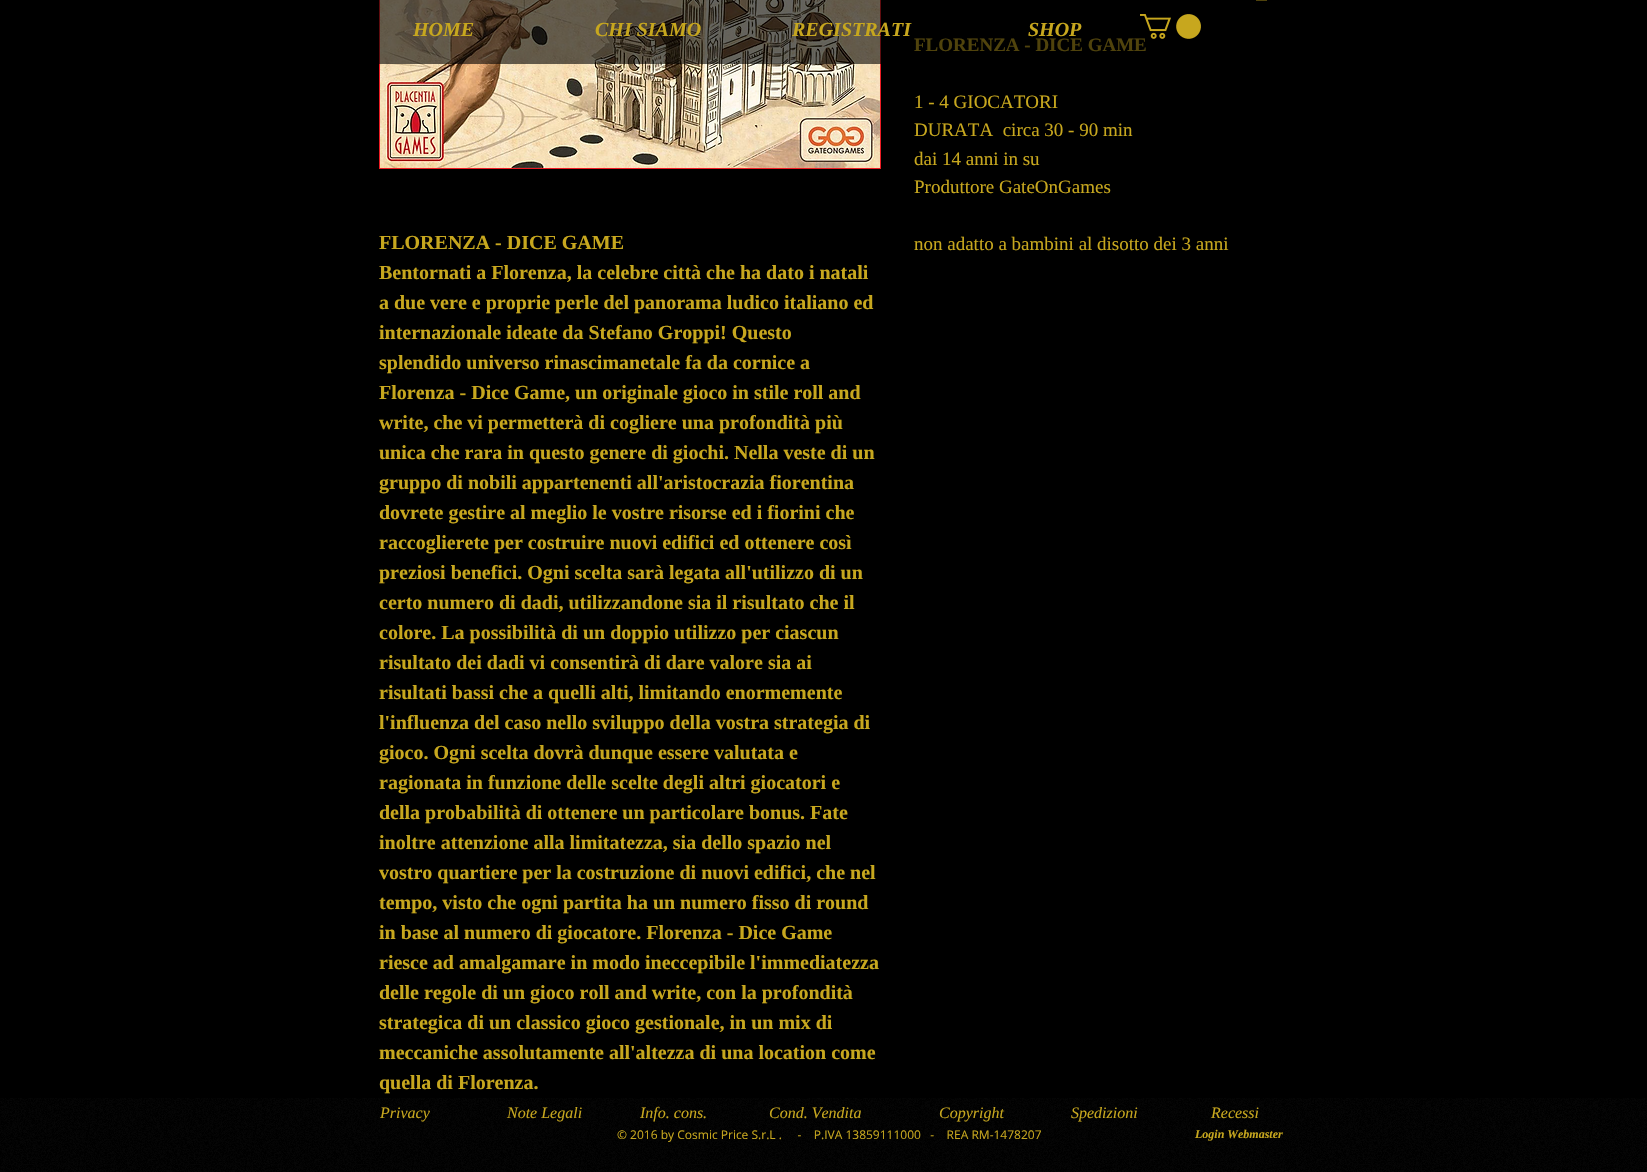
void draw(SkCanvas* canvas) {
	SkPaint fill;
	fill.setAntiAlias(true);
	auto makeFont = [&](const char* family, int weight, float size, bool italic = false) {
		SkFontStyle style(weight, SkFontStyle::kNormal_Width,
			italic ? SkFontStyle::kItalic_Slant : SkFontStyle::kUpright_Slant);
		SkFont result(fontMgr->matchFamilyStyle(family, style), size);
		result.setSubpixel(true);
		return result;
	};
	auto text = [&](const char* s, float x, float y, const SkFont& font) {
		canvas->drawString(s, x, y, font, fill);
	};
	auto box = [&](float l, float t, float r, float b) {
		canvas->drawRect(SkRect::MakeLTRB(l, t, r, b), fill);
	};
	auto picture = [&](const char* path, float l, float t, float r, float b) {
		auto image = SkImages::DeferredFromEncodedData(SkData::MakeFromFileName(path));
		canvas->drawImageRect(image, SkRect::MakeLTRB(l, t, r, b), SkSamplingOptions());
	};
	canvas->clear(0xFF000000);
	fill.setColor(0xFFC7A71E);
	box(1256, 0, 1267, 1);
	fill.setStyle(SkPaint::kStroke_Style);
	fill.setStrokeWidth(1);
	fill.setColor(0xFFED1C24);
	canvas->drawRect(SkRect::MakeLTRB(379.5f, -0.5f, 880.5f, 168.5f), fill);
	picture("image1.png", 380, 0, 880, 168);
	picture("image2.png", 0, 1098, 1647, 1172);
	auto font1 = makeFont("Liberation Serif", 700, 19);
	fill.setStyle(SkPaint::kFill_Style);
	fill.setColor(0xFFC7A71E);
	text("FLORENZA - DICE GAME", 914, 51, font1);
	fill.setColor(0x99000000);
	box(379, 0, 1267, 64);
	auto font2 = makeFont("Liberation Serif", 700, 20, true);
	fill.setColor(0xFFC7A71E);
	text("SHOP", 1028, 36, font2);
	text("REGISTRATI", 792, 36, font2);
	text("CHI SIAMO", 595, 36, font2);
	text("HOME", 413, 36, font2);
	picture("image0.png", 1140, 14, 1201, 39);
	auto font3 = makeFont("Liberation Serif", 400, 19);
	text("1 - 4 GIOCATORI", 914, 108, font3);
	text("DURATA  circa 30 - 90 min", 914, 136, font3);
	text("dai 14 anni in su", 914, 165, font3);
	text("Produttore GateOnGames", 914, 193, font3);
	text("non adatto a bambini al disotto dei 3 anni", 914, 250, font3);
	auto font4 = makeFont("Liberation Serif", 700, 20);
	text("FLORENZA - DICE GAME", 379, 249, font4);
	text("Bentornati a Florenza, la celebre città che ha dato i natali", 379, 279, font4);
	text("a due vere e proprie perle del panorama ludico italiano ed", 379, 309, font4);
	text("internazionale ideate da Stefano Groppi! Questo", 379, 339, font4);
	text("splendido universo rinascimanetale fa da cornice a", 379, 369, font4);
	text("Florenza - Dice Game, un originale gioco in stile roll and", 379, 399, font4);
	text("write, che vi permetterà di cogliere una profondità più", 379, 429, font4);
	text("unica che rara in questo genere di giochi. Nella veste di un", 379, 459, font4);
	text("gruppo di nobili appartenenti all'aristocrazia fiorentina", 379, 489, font4);
	text("dovrete gestire al meglio le vostre risorse ed i fiorini che", 379, 519, font4);
	text("raccoglierete per costruire nuovi edifici ed ottenere così", 379, 549, font4);
	canvas->save();
	canvas->clipRect(SkRect::MakeLTRB(379, 227, 879, 1097));
	text("preziosi benefici. Ogni scelta sarà legata all'utilizzo di un", 379, 579, font4);
	canvas->restore();
	text("certo numero di dadi, utilizzandone sia il risultato che il", 379, 609, font4);
	text("colore. La possibilità di un doppio utilizzo per ciascun", 379, 639, font4);
	text("risultato dei dadi vi consentirà di dare valore sia ai", 379, 669, font4);
	text("risultati bassi che a quelli alti, limitando enormemente", 379, 699, font4);
	text("l'influenza del caso nello sviluppo della vostra strategia di", 379, 729, font4);
	text("gioco. Ogni scelta dovrà dunque essere valutata e", 379, 759, font4);
	text("ragionata in funzione delle scelte degli altri giocatori e", 379, 789, font4);
	text("della probabilità di ottenere un particolare bonus. Fate", 379, 819, font4);
	text("inoltre attenzione alla limitatezza, sia dello spazio nel", 379, 849, font4);
	text("vostro quartiere per la costruzione di nuovi edifici, che nel", 379, 879, font4);
	text("tempo, visto che ogni partita ha un numero fisso di round", 379, 909, font4);
	text("in base al numero di giocatore. Florenza - Dice Game", 379, 939, font4);
	text("riesce ad amalgamare in modo ineccepibile l'immediatezza", 379, 969, font4);
	text("delle regole di un gioco roll and write, con la profondità", 379, 999, font4);
	text("strategica di un classico gioco gestionale, in un mix di", 379, 1029, font4);
	text("meccaniche assolutamente all'altezza di una location come", 379, 1059, font4);
	text("quella di Florenza.", 379, 1089, font4);
	auto font5 = makeFont("Liberation Serif", 400, 16, true);
	text("Privacy", 380, 1118, font5);
	text("Note Legali", 507, 1118, font5);
	text("Info. cons.", 640, 1118, font5);
	text("Cond. Vendita", 769, 1118, font5);
	text("Copyright", 939, 1118, font5);
	text("Spedizioni", 1071, 1118, font5);
	text("Recessi", 1211, 1118, font5);
	auto font6 = makeFont("Open Sans", 400, 12);
	text("© 2016 by Cosmic Price S.r.L .     -    P.IVA 13859111000   -    REA RM-1478207", 617, 1139, font6);
	auto font7 = makeFont("Liberation Serif", 700, 12, true);
	text("Login Webmaster", 1195, 1138, font7);
}
